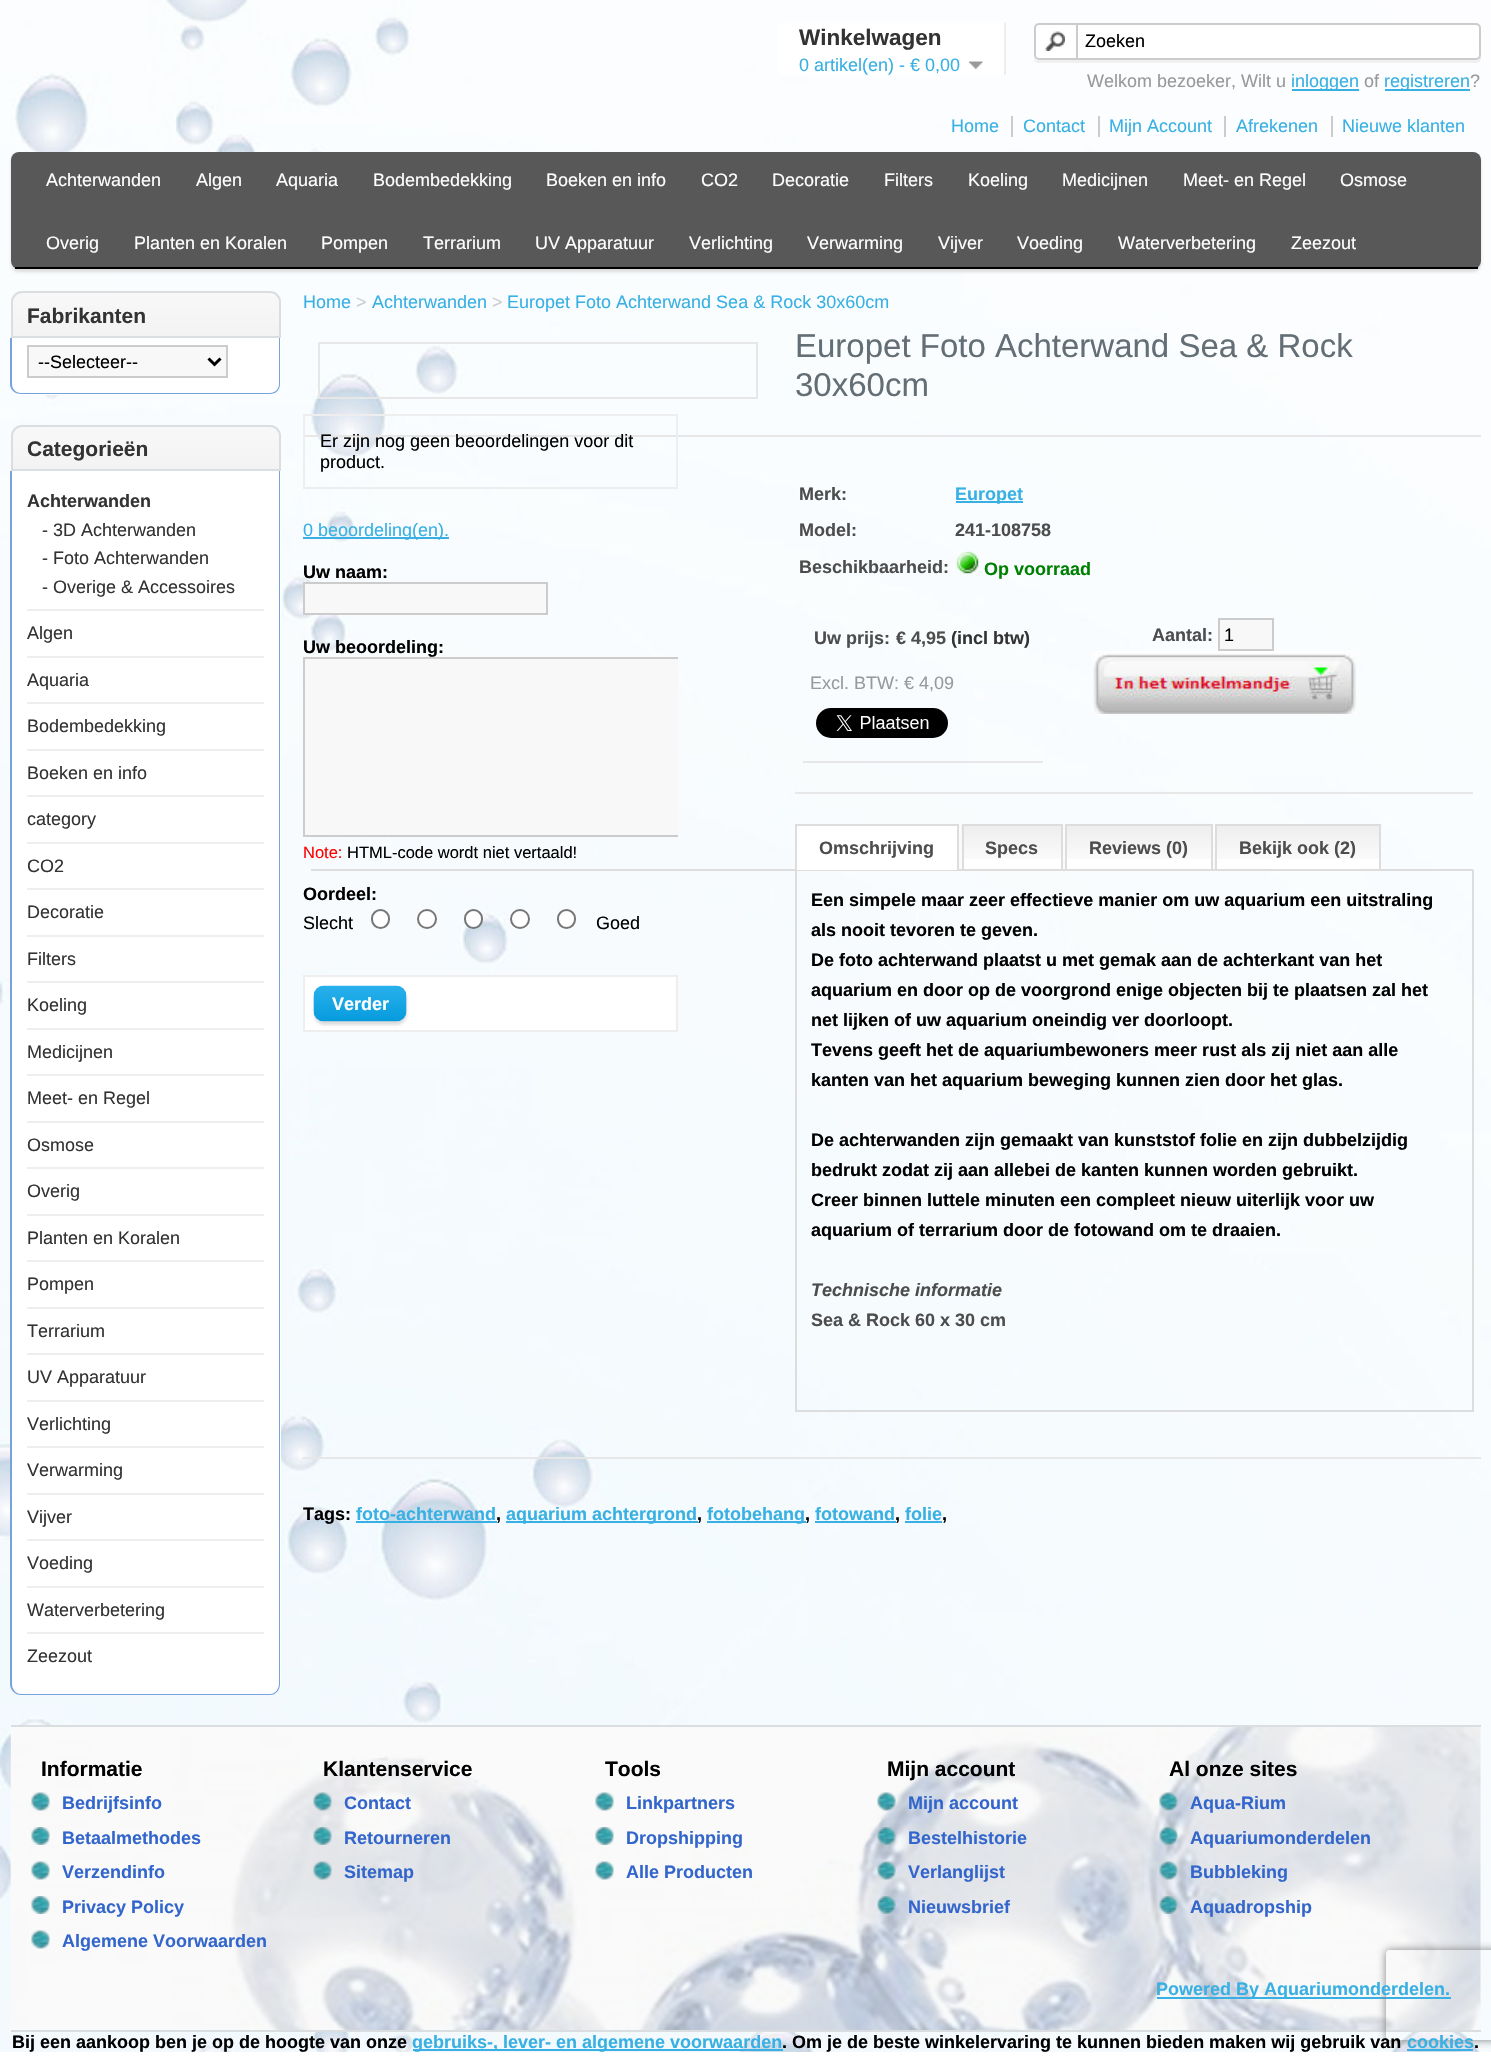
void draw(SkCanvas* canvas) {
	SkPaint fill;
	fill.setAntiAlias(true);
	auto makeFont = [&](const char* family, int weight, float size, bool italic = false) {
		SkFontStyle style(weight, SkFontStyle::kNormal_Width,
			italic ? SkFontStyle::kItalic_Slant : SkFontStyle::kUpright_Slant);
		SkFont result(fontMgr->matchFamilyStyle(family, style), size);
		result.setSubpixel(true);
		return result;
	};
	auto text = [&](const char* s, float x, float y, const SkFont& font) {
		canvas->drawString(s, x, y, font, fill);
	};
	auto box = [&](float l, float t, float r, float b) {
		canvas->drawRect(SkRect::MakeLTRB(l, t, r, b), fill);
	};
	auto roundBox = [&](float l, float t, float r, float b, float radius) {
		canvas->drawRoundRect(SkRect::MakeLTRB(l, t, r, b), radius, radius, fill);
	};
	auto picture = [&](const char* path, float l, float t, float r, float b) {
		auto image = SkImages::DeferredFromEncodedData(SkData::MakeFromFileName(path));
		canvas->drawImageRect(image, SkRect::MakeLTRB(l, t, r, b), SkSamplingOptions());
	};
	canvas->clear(0xFFFFFFFF);
	picture("image0.png", 0, 0, 1491, 2052);
	fill.setColor(0xFFFFFFFF);
	box(777, 23, 1004, 75);
	fill.setColor(0xFFEEEEEE);
	box(1004, 23, 1006, 75);
	picture("image1.png", 969, 61, 983, 69);
	fill.setColor(0xFFF0F0F0);
	canvas->drawPath(SkPathBuilder().moveTo(1034, 58).cubicTo(1034, 61, 1036, 63, 1039, 63).lineTo(1476, 63).cubicTo(1479, 63, 1481, 61, 1481, 58).lineTo(1481, 31).lineTo(1480, 29).lineTo(1480, 56).cubicTo(1480, 58, 1478, 60, 1476, 60).lineTo(1038, 60).cubicTo(1036, 60, 1035, 59, 1034, 58).close().detach(), fill);
	fill.setColor(0xFFFFFFFF);
	canvas->drawRoundRect(SkRect::MakeLTRB(1035, 24, 1480, 59), 4, 4, fill);
	fill.setStyle(SkPaint::kStroke_Style);
	fill.setStrokeWidth(2);
	fill.setColor(0xFFCCCCCC);
	canvas->drawRoundRect(SkRect::MakeLTRB(1035, 24, 1480, 59), 4, 4, fill);
	picture("image2.png", 1045, 31, 1065, 51);
	fill.setStyle(SkPaint::kFill_Style);
	box(1076, 23, 1078, 59);
	fill.setColor(0xFF38B0E3);
	box(1292, 89, 1359, 91);
	box(1385, 89, 1470, 91);
	fill.setColor(0xFFCCCCCC);
	box(1011, 116, 1013, 137);
	box(1098, 116, 1100, 137);
	box(1224, 116, 1226, 137);
	box(1331, 116, 1333, 137);
	fill.setColor(0xFFDDDDDD);
	fill.setMaskFilter(SkMaskFilter::MakeBlur(kNormal_SkBlurStyle, 1.5f));
	canvas->drawRoundRect(SkRect::MakeLTRB(11, 155, 1481, 272), 8, 8, fill);
	fill.setMaskFilter(nullptr);
	fill.setColor(0xFF585858);
	roundBox(11, 152, 1481, 269, 8);
	fill.setColor(0xFF000000);
	box(15, 267, 1478, 269);
	picture("image3.png", 11, 292, 280, 336);
	fill.setStyle(SkPaint::kStroke_Style);
	fill.setColor(0xFFDBDEE1);
	canvas->drawPath(SkPathBuilder().moveTo(22, 292).lineTo(270, 292).cubicTo(275.5f, 292, 280, 296.5f, 280, 302).lineTo(280, 337).lineTo(12, 337).lineTo(12, 302).cubicTo(12, 296.5f, 16.5f, 292, 22, 292).close().detach(), fill);
	fill.setStyle(SkPaint::kFill_Style);
	fill.setColor(0xFFFFFFFF);
	canvas->drawPath(SkPathBuilder().moveTo(11, 338).lineTo(281, 338).lineTo(281, 384).cubicTo(281, 390, 276, 395, 270, 395).lineTo(22, 395).cubicTo(16, 395, 11, 390, 11, 384).close().detach(), fill);
	fill.setColor(0xFF76A3DC);
	canvas->drawPath(SkPathBuilder(SkPathFillType::kEvenOdd).moveTo(10, 338).lineTo(280, 338).lineTo(280, 384).cubicTo(280, 390, 276, 394, 270, 394).lineTo(21, 394).cubicTo(15, 394, 10, 390, 10, 384).close().moveTo(12, 338).lineTo(279, 338).lineTo(279, 384).cubicTo(279, 389, 275, 393, 270, 393).lineTo(21, 393).cubicTo(16, 393, 12, 389, 12, 384).close().detach(), fill);
	fill.setColor(0xFFF8F8F8);
	canvas->drawRect(SkRect::MakeLTRB(28, 346, 227, 377), fill);
	fill.setStyle(SkPaint::kStroke_Style);
	fill.setColor(0xFFCCCCCC);
	canvas->drawRect(SkRect::MakeLTRB(28, 346, 227, 377), fill);
	fill.setStrokeWidth(3);
	fill.setColor(0xFF000000);
	canvas->drawPath(SkPathBuilder().moveTo(208.5f, 358.5f).lineTo(214.5f, 364.5f).lineTo(220.5f, 358.5f).detach(), fill);
	picture("image4.png", 11, 426, 280, 469);
	fill.setStrokeWidth(2);
	fill.setColor(0xFFDBDEE1);
	canvas->drawPath(SkPathBuilder().moveTo(22, 426).lineTo(270, 426).cubicTo(275.5f, 426, 280, 430.5f, 280, 436).lineTo(280, 470).lineTo(12, 470).lineTo(12, 436).cubicTo(12, 430.5f, 16.5f, 426, 22, 426).close().detach(), fill);
	fill.setStyle(SkPaint::kFill_Style);
	fill.setColor(0xFFFFFFFF);
	canvas->drawPath(SkPathBuilder().moveTo(11, 471).lineTo(281, 471).lineTo(281, 1684).cubicTo(281, 1690, 276, 1695, 270, 1695).lineTo(22, 1695).cubicTo(16, 1695, 11, 1690, 11, 1684).close().detach(), fill);
	fill.setColor(0xFF76A3DC);
	canvas->drawPath(SkPathBuilder(SkPathFillType::kEvenOdd).moveTo(10, 471).lineTo(280, 471).lineTo(280, 1684).cubicTo(280, 1690, 276, 1695, 270, 1695).lineTo(21, 1695).cubicTo(15, 1695, 10, 1690, 10, 1684).close().moveTo(12, 471).lineTo(279, 471).lineTo(279, 1684).cubicTo(279, 1689, 275, 1694, 270, 1694).lineTo(21, 1694).cubicTo(16, 1694, 12, 1689, 12, 1684).close().detach(), fill);
	fill.setColor(0xFFEEEEEE);
	box(27, 609, 264, 611);
	box(27, 656, 264, 658);
	box(27, 702, 264, 704);
	box(27, 749, 264, 751);
	box(27, 795, 264, 797);
	box(27, 842, 264, 844);
	box(27, 888, 264, 890);
	box(27, 935, 264, 937);
	box(27, 981, 264, 983);
	box(27, 1028, 264, 1030);
	box(27, 1074, 264, 1076);
	box(27, 1121, 264, 1123);
	box(27, 1167, 264, 1169);
	box(27, 1214, 264, 1216);
	box(27, 1260, 264, 1262);
	box(27, 1307, 264, 1309);
	box(27, 1353, 264, 1355);
	box(27, 1400, 264, 1402);
	box(27, 1446, 264, 1448);
	box(27, 1493, 264, 1495);
	box(27, 1539, 264, 1541);
	box(27, 1586, 264, 1588);
	box(27, 1632, 264, 1634);
	fill.setStyle(SkPaint::kStroke_Style);
	fill.setColor(0xFFE7E7E7);
	canvas->drawRect(SkRect::MakeLTRB(319, 343, 757, 398), fill);
	fill.setStyle(SkPaint::kFill_Style);
	box(303, 435, 1481, 437);
	fill.setStyle(SkPaint::kStroke_Style);
	fill.setColor(0xFFEEEEEE);
	canvas->drawRect(SkRect::MakeLTRB(304, 415, 677, 488), fill);
	fill.setStyle(SkPaint::kFill_Style);
	fill.setColor(0xFF38B0E3);
	box(303, 537, 449, 539);
	fill.setColor(0xFFF8F8F8);
	canvas->drawRect(SkRect::MakeLTRB(304, 583, 547, 614), fill);
	fill.setStyle(SkPaint::kStroke_Style);
	fill.setColor(0xFFCCCCCC);
	canvas->drawRect(SkRect::MakeLTRB(304, 583, 547, 614), fill);
	fill.setStyle(SkPaint::kFill_Style);
	fill.setColor(0xFFF8F8F8);
	box(305, 659, 678, 835);
	canvas->save();
	canvas->clipRect(SkRect::MakeLTRB(303, 414, 678, 1062));
	fill.setStyle(SkPaint::kStroke_Style);
	fill.setColor(0xFFCCCCCC);
	canvas->drawRect(SkRect::MakeLTRB(304, 658, 682, 836), fill);
	canvas->restore();
	fill.setStyle(SkPaint::kFill_Style);
	fill.setColor(0xFFFFFFFF);
	canvas->drawRoundRect(SkRect::MakeLTRB(372, 910, 389, 928), 8.5f, 8.5f, fill);
	fill.setStyle(SkPaint::kStroke_Style);
	fill.setColor(0xFF767676);
	canvas->drawRoundRect(SkRect::MakeLTRB(372, 910, 389, 928), 8.5f, 8.5f, fill);
	fill.setStyle(SkPaint::kFill_Style);
	fill.setColor(0xFFFFFFFF);
	canvas->drawCircle(427, 919, 9, fill);
	fill.setStyle(SkPaint::kStroke_Style);
	fill.setColor(0xFF767676);
	canvas->drawCircle(427, 919, 9, fill);
	fill.setStyle(SkPaint::kFill_Style);
	fill.setColor(0xFFFFFFFF);
	canvas->drawRoundRect(SkRect::MakeLTRB(465, 910, 482, 928), 8.5f, 8.5f, fill);
	fill.setStyle(SkPaint::kStroke_Style);
	fill.setColor(0xFF767676);
	canvas->drawRoundRect(SkRect::MakeLTRB(465, 910, 482, 928), 8.5f, 8.5f, fill);
	fill.setStyle(SkPaint::kFill_Style);
	fill.setColor(0xFFFFFFFF);
	canvas->drawCircle(520, 919, 9, fill);
	fill.setStyle(SkPaint::kStroke_Style);
	fill.setColor(0xFF767676);
	canvas->drawCircle(520, 919, 9, fill);
	fill.setStyle(SkPaint::kFill_Style);
	fill.setColor(0xFFFFFFFF);
	canvas->drawRoundRect(SkRect::MakeLTRB(558, 910, 575, 928), 8.5f, 8.5f, fill);
	fill.setStyle(SkPaint::kStroke_Style);
	fill.setColor(0xFF767676);
	canvas->drawRoundRect(SkRect::MakeLTRB(558, 910, 575, 928), 8.5f, 8.5f, fill);
	fill.setStyle(SkPaint::kFill_Style);
	fill.setColor(0xFFFFFFFF);
	canvas->drawRect(SkRect::MakeLTRB(304, 976, 677, 1031), fill);
	fill.setStyle(SkPaint::kStroke_Style);
	fill.setColor(0xFFEEEEEE);
	canvas->drawRect(SkRect::MakeLTRB(304, 976, 677, 1031), fill);
	fill.setStyle(SkPaint::kFill_Style);
	fill.setColor(0xFFDDDDDD);
	fill.setMaskFilter(SkMaskFilter::MakeBlur(kNormal_SkBlurStyle, 1.5f));
	canvas->drawRoundRect(SkRect::MakeLTRB(314, 989, 407, 1025), 11, 11, fill);
	fill.setMaskFilter(nullptr);
	picture("image5.png", 313, 985, 407, 1022);
	fill.setColor(0xFFE7E7E7);
	box(303, 1457, 1481, 1459);
	fill.setColor(0xFF38B0E3);
	box(956, 501, 1023, 503);
	picture("image6.png", 956, 551, 979, 574);
	fill.setColor(0xFFE7E7E7);
	box(795, 792, 1473, 794);
	box(803, 761, 1043, 763);
	picture("image7.png", 816, 708, 948, 738);
	fill.setColor(0xFFF8F8F8);
	canvas->drawRect(SkRect::MakeLTRB(1219, 619, 1273, 650), fill);
	fill.setStyle(SkPaint::kStroke_Style);
	fill.setColor(0xFFCCCCCC);
	canvas->drawRect(SkRect::MakeLTRB(1219, 619, 1273, 650), fill);
	picture("image8.png", 1092, 651, 1356, 714);
	fill.setStyle(SkPaint::kFill_Style);
	fill.setColor(0xFFDDDDDD);
	box(311, 869, 1473, 871);
	fill.setColor(0xFFFFFFFF);
	box(797, 826, 957, 870);
	fill.setColor(0xFFDDDDDD);
	box(795, 824, 959, 826);
	box(957, 824, 959, 870);
	box(795, 824, 797, 870);
	fill.setColor(0xFFFFFFFF);
	box(964, 859, 1061, 869);
	picture("image9.png", 961, 825, 1061, 859);
	fill.setColor(0xFFDDDDDD);
	box(962, 824, 1062, 826);
	box(1061, 824, 1063, 869);
	box(962, 824, 964, 869);
	fill.setColor(0xFFFFFFFF);
	box(1067, 859, 1211, 869);
	picture("image10.png", 1067, 826, 1211, 859);
	fill.setColor(0xFFDDDDDD);
	box(1065, 824, 1212, 826);
	box(1211, 824, 1213, 869);
	box(1065, 824, 1067, 869);
	fill.setColor(0xFFFFFFFF);
	box(1217, 859, 1379, 869);
	picture("image11.png", 1217, 826, 1379, 859);
	fill.setColor(0xFFDDDDDD);
	box(1215, 824, 1380, 826);
	box(1379, 824, 1381, 869);
	box(1215, 824, 1217, 869);
	box(1472, 870, 1474, 1412);
	box(795, 1410, 1473, 1412);
	box(795, 870, 797, 1412);
	fill.setColor(0xFF38B0E3);
	box(356, 1521, 497, 1523);
	box(506, 1521, 698, 1523);
	box(707, 1521, 806, 1523);
	box(815, 1521, 896, 1523);
	box(905, 1521, 942, 1523);
	fill.setColor(0xFFF8F8F8);
	box(11, 1727, 1481, 2030);
	picture("image12.png", 10, 1726, 1481, 2031);
	fill.setColor(0xFFDBDEE1);
	box(11, 1725, 1481, 1727);
	box(11, 2030, 1481, 2032);
	picture("image13.png", 31, 1792, 50, 1811);
	picture("image14.png", 31, 1827, 50, 1845);
	picture("image15.png", 31, 1861, 50, 1880);
	picture("image16.png", 31, 1896, 50, 1914);
	picture("image17.png", 31, 1930, 50, 1949);
	picture("image18.png", 313, 1792, 332, 1811);
	picture("image19.png", 313, 1827, 332, 1845);
	picture("image20.png", 313, 1861, 332, 1880);
	picture("image21.png", 595, 1792, 614, 1811);
	picture("image22.png", 595, 1827, 614, 1845);
	picture("image23.png", 595, 1861, 614, 1880);
	picture("image24.png", 877, 1792, 896, 1811);
	picture("image25.png", 877, 1827, 896, 1845);
	picture("image26.png", 877, 1861, 896, 1880);
	picture("image27.png", 877, 1896, 896, 1914);
	picture("image28.png", 1159, 1792, 1178, 1811);
	picture("image29.png", 1159, 1827, 1178, 1845);
	picture("image30.png", 1159, 1861, 1178, 1880);
	picture("image31.png", 1159, 1896, 1178, 1914);
	fill.setColor(0xFF38B0E3);
	box(1157, 1997, 1451, 1999);
	box(1407, 2049, 1473, 2051);
	canvas->save();
	canvas->clipPath(SkPathBuilder(SkPathFillType::kEvenOdd).moveTo(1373, 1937).lineTo(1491, 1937).lineTo(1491, 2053).lineTo(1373, 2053).close().moveTo(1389, 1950).lineTo(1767, 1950).cubicTo(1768.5f, 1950, 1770, 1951.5f, 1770, 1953).lineTo(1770, 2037).cubicTo(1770, 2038.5f, 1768.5f, 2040, 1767, 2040).lineTo(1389, 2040).cubicTo(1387.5f, 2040, 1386, 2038.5f, 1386, 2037).lineTo(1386, 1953).cubicTo(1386, 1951.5f, 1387.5f, 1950, 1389, 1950).close().detach(), true);
	fill.setColor(0xFF808080);
	fill.setMaskFilter(SkMaskFilter::MakeBlur(kNormal_SkBlurStyle, 4));
	canvas->drawRoundRect(SkRect::MakeLTRB(1386, 1950, 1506, 2040), 3, 3, fill);
	fill.setMaskFilter(nullptr);
	canvas->restore();
	fill.setColor(0xFF38B0E3);
	box(413, 2049, 783, 2051);
	auto font1 = makeFont("Liberation Sans", 700, 22.5f);
	fill.setColor(0xFF333333);
	text("Winkelwagen", 799, 45, font1);
	auto font2 = makeFont("Liberation Sans", 400, 18);
	fill.setColor(0xFF38B0E3);
	text("0 artikel(en) - € 0,00", 799, 71, font2);
	fill.setColor(0xFF000000);
	text("Zoeken", 1085, 47, font2);
	fill.setColor(0xFF999999);
	text("Welkom bezoeker, Wilt u", 1087, 87, font2);
	fill.setColor(0xFF38B0E3);
	text("inloggen", 1291, 87, font2);
	fill.setColor(0xFF999999);
	text("of", 1364, 87, font2);
	fill.setColor(0xFF38B0E3);
	text("registreren", 1384, 87, font2);
	fill.setColor(0xFF999999);
	text("?", 1470, 87, font2);
	fill.setColor(0xFF38B0E3);
	text("Home", 951, 132, font2);
	text("Contact", 1023, 132, font2);
	text("Mijn Account", 1109, 132, font2);
	text("Afrekenen", 1236, 132, font2);
	text("Nieuwe klanten", 1342, 132, font2);
	fill.setColor(0xFFFFFFFF);
	text("Achterwanden", 46, 186, font2);
	text("Algen", 196, 186, font2);
	text("Aquaria", 276, 186, font2);
	text("Bodembedekking", 373, 186, font2);
	text("Boeken en info", 546, 186, font2);
	text("CO2", 701, 186, font2);
	text("Decoratie", 772, 186, font2);
	text("Filters", 884, 186, font2);
	text("Koeling", 968, 186, font2);
	text("Medicijnen", 1062, 186, font2);
	text("Meet- en Regel", 1183, 186, font2);
	text("Osmose", 1340, 186, font2);
	text("Overig", 46, 249, font2);
	text("Planten en Koralen", 134, 249, font2);
	text("Pompen", 321, 249, font2);
	text("Terrarium", 423, 249, font2);
	text("UV Apparatuur", 535, 249, font2);
	text("Verlichting", 689, 249, font2);
	text("Verwarming", 807, 249, font2);
	text("Vijver", 938, 249, font2);
	text("Voeding", 1017, 249, font2);
	text("Waterverbetering", 1118, 249, font2);
	text("Zeezout", 1291, 249, font2);
	auto font3 = makeFont("Liberation Sans", 700, 21);
	fill.setColor(0xFF333333);
	text("Fabrikanten", 27, 323, font3);
	fill.setColor(0xFF000000);
	text("--Selecteer--", 38, 368, font2);
	fill.setColor(0xFF333333);
	text("Categorieën", 27, 456, font3);
	auto font4 = makeFont("Liberation Sans", 700, 18);
	text("Achterwanden", 27, 507, font4);
	text("- 3D Achterwanden", 42, 536, font2);
	text("- Foto Achterwanden", 42, 564, font2);
	text("- Overige & Accessoires", 42, 593, font2);
	text("Algen", 27, 639, font2);
	text("Aquaria", 27, 686, font2);
	text("Bodembedekking", 27, 732, font2);
	text("Boeken en info", 27, 779, font2);
	text("category", 27, 825, font2);
	text("CO2", 27, 872, font2);
	text("Decoratie", 27, 918, font2);
	text("Filters", 27, 965, font2);
	text("Koeling", 27, 1011, font2);
	text("Medicijnen", 27, 1058, font2);
	text("Meet- en Regel", 27, 1104, font2);
	text("Osmose", 27, 1151, font2);
	text("Overig", 27, 1197, font2);
	text("Planten en Koralen", 27, 1244, font2);
	text("Pompen", 27, 1290, font2);
	text("Terrarium", 27, 1337, font2);
	text("UV Apparatuur", 27, 1383, font2);
	text("Verlichting", 27, 1430, font2);
	text("Verwarming", 27, 1476, font2);
	text("Vijver", 27, 1523, font2);
	text("Voeding", 27, 1569, font2);
	text("Waterverbetering", 27, 1616, font2);
	text("Zeezout", 27, 1662, font2);
	fill.setColor(0xFF38B0E3);
	text("Home", 303, 308, font2);
	fill.setColor(0xFFCCCCCC);
	text(">", 356, 308, font2);
	fill.setColor(0xFF38B0E3);
	text("Achterwanden", 372, 308, font2);
	fill.setColor(0xFFCCCCCC);
	text(">", 492, 308, font2);
	fill.setColor(0xFF38B0E3);
	text("Europet Foto Achterwand Sea & Rock 30x60cm", 507, 308, font2);
	fill.setColor(0xFF000000);
	text("Er zijn nog geen beoordelingen voor dit", 320, 447, font2);
	text("product.", 320, 468, font2);
	fill.setColor(0xFF38B0E3);
	text("0 beoordeling(en).", 303, 536, font2);
	fill.setColor(0xFF000000);
	text("Uw naam:", 303, 578, font4);
	text("Uw beoordeling:", 303, 653, font4);
	auto font5 = makeFont("Liberation Sans", 400, 16.5f);
	fill.setColor(0xFFFF0000);
	text("Note:", 303, 858, font5);
	fill.setColor(0xFF000000);
	text("HTML-code wordt niet vertaald!", 347, 858, font5);
	text("Oordeel:", 303, 900, font4);
	text("Slecht", 303, 929, font2);
	text("Goed", 596, 929, font2);
	fill.setColor(0xFFFFFFFF);
	text("Verder", 332, 1010, font4);
	auto font6 = makeFont("Liberation Sans", 400, 33);
	fill.setColor(0xFF636E75);
	text("Europet Foto Achterwand Sea & Rock", 795, 357, font6);
	text("30x60cm", 795, 396, font6);
	fill.setColor(0xFF4D4D4D);
	text("Merk:", 799, 500, font4);
	fill.setColor(0xFF38B0E3);
	text("Europet", 955, 500, font4);
	fill.setColor(0xFF4D4D4D);
	text("Model:", 799, 536, font4);
	text("241-108758", 955, 536, font4);
	text("Beschikbaarheid:", 799, 573, font4);
	fill.setColor(0xFF008000);
	text("Op voorraad", 984, 575, font4);
	fill.setColor(0xFF4D4D4D);
	text("Uw prijs:", 814, 644, font4);
	text("€ 4,95", 896, 644, font4);
	fill.setColor(0xFF333333);
	text("(incl btw)", 951, 644, font4);
	fill.setColor(0xFF999999);
	text("Excl. BTW: € 4,09", 810, 689, font2);
	fill.setColor(0xFF4D4D4D);
	text("Aantal:", 1152, 641, font4);
	fill.setColor(0xFF000000);
	text("1", 1224, 641, font2);
	fill.setColor(0xFF4D4D4D);
	text("Omschrijving", 819, 854, font4);
	text("Specs", 985, 854, font4);
	text("Reviews (0)", 1089, 854, font4);
	text("Bekijk ook (2)", 1239, 854, font4);
	fill.setColor(0xFF000000);
	text("Een simpele maar zeer effectieve manier om uw aquarium een uitstraling", 811, 906, font4);
	text("als nooit tevoren te geven.", 811, 936, font4);
	text("De foto achterwand plaatst u met gemak aan de achterkant van het", 811, 966, font4);
	text("aquarium en door op de voorgrond enige objecten bij te plaatsen zal het", 811, 996, font4);
	text("net lijken of uw aquarium oneindig ver doorloopt.", 811, 1026, font4);
	text("Tevens geeft het de aquariumbewoners meer rust als zij niet aan alle", 811, 1056, font4);
	text("kanten van het aquarium beweging kunnen zien door het glas.", 811, 1086, font4);
	text("De achterwanden zijn gemaakt van kunststof folie en zijn dubbelzijdig", 811, 1146, font4);
	text("bedrukt zodat zij aan allebei de kanten kunnen worden gebruikt.", 811, 1176, font4);
	text("Creer binnen luttele minuten een compleet nieuw uiterlijk voor uw", 811, 1206, font4);
	text("aquarium of terrarium door de fotowand om te draaien.", 811, 1236, font4);
	auto font7 = makeFont("Liberation Sans", 700, 18, true);
	fill.setColor(0xFF4D4D4D);
	text("Technische informatie", 811, 1296, font7);
	text("Sea & Rock 60 x 30 cm", 811, 1326, font4);
	fill.setColor(0xFF000000);
	text("Tags:", 303, 1520, font4);
	fill.setColor(0xFF38B0E3);
	text("foto-achterwand", 356, 1520, font4);
	fill.setColor(0xFF000000);
	text(",", 496, 1520, font4);
	fill.setColor(0xFF38B0E3);
	text("aquarium achtergrond", 506, 1520, font4);
	fill.setColor(0xFF000000);
	text(",", 697, 1520, font4);
	fill.setColor(0xFF38B0E3);
	text("fotobehang", 707, 1520, font4);
	fill.setColor(0xFF000000);
	text(",", 805, 1520, font4);
	fill.setColor(0xFF38B0E3);
	text("fotowand", 815, 1520, font4);
	fill.setColor(0xFF000000);
	text(",", 895, 1520, font4);
	fill.setColor(0xFF38B0E3);
	text("folie", 905, 1520, font4);
	fill.setColor(0xFF000000);
	text(",", 942, 1520, font4);
	text("Informatie", 41, 1776, font3);
	fill.setColor(0xFF3366CC);
	text("Bedrijfsinfo", 62, 1809, font4);
	text("Betaalmethodes", 62, 1844, font4);
	text("Verzendinfo", 62, 1878, font4);
	text("Privacy Policy", 62, 1913, font4);
	text("Algemene Voorwaarden", 62, 1947, font4);
	fill.setColor(0xFF000000);
	text("Klantenservice", 323, 1776, font3);
	fill.setColor(0xFF3366CC);
	text("Contact", 344, 1809, font4);
	text("Retourneren", 344, 1844, font4);
	text("Sitemap", 344, 1878, font4);
	fill.setColor(0xFF000000);
	text("Tools", 605, 1776, font3);
	fill.setColor(0xFF3366CC);
	text("Linkpartners", 626, 1809, font4);
	text("Dropshipping", 626, 1844, font4);
	text("Alle Producten", 626, 1878, font4);
	fill.setColor(0xFF000000);
	text("Mijn account", 887, 1776, font3);
	fill.setColor(0xFF3366CC);
	text("Mijn account", 908, 1809, font4);
	text("Bestelhistorie", 908, 1844, font4);
	text("Verlanglijst", 908, 1878, font4);
	text("Nieuwsbrief", 908, 1913, font4);
	fill.setColor(0xFF000000);
	text("Al onze sites", 1169, 1776, font3);
	fill.setColor(0xFF3366CC);
	text("Aqua-Rium", 1190, 1809, font4);
	text("Aquariumonderdelen", 1190, 1844, font4);
	text("Bubbleking", 1190, 1878, font4);
	text("Aquadropship", 1190, 1913, font4);
	fill.setColor(0xFF38B0E3);
	text("Powered By Aquariumonderdelen.", 1156, 1995, font4);
	fill.setColor(0xFF000000);
	text("Bij een aankoop ben je op de hoogte van onze", 12, 2048, font4);
	fill.setColor(0xFF38B0E3);
	text("gebruiks-, lever- en algemene voorwaarden", 412, 2048, font4);
	fill.setColor(0xFF000000);
	text(". Om je de beste winkelervaring te kunnen bieden maken wij gebruik van", 782, 2048, font4);
	fill.setColor(0xFF38B0E3);
	text("cookies", 1407, 2048, font4);
	fill.setColor(0xFF000000);
	text(".", 1474, 2048, font4);
}
